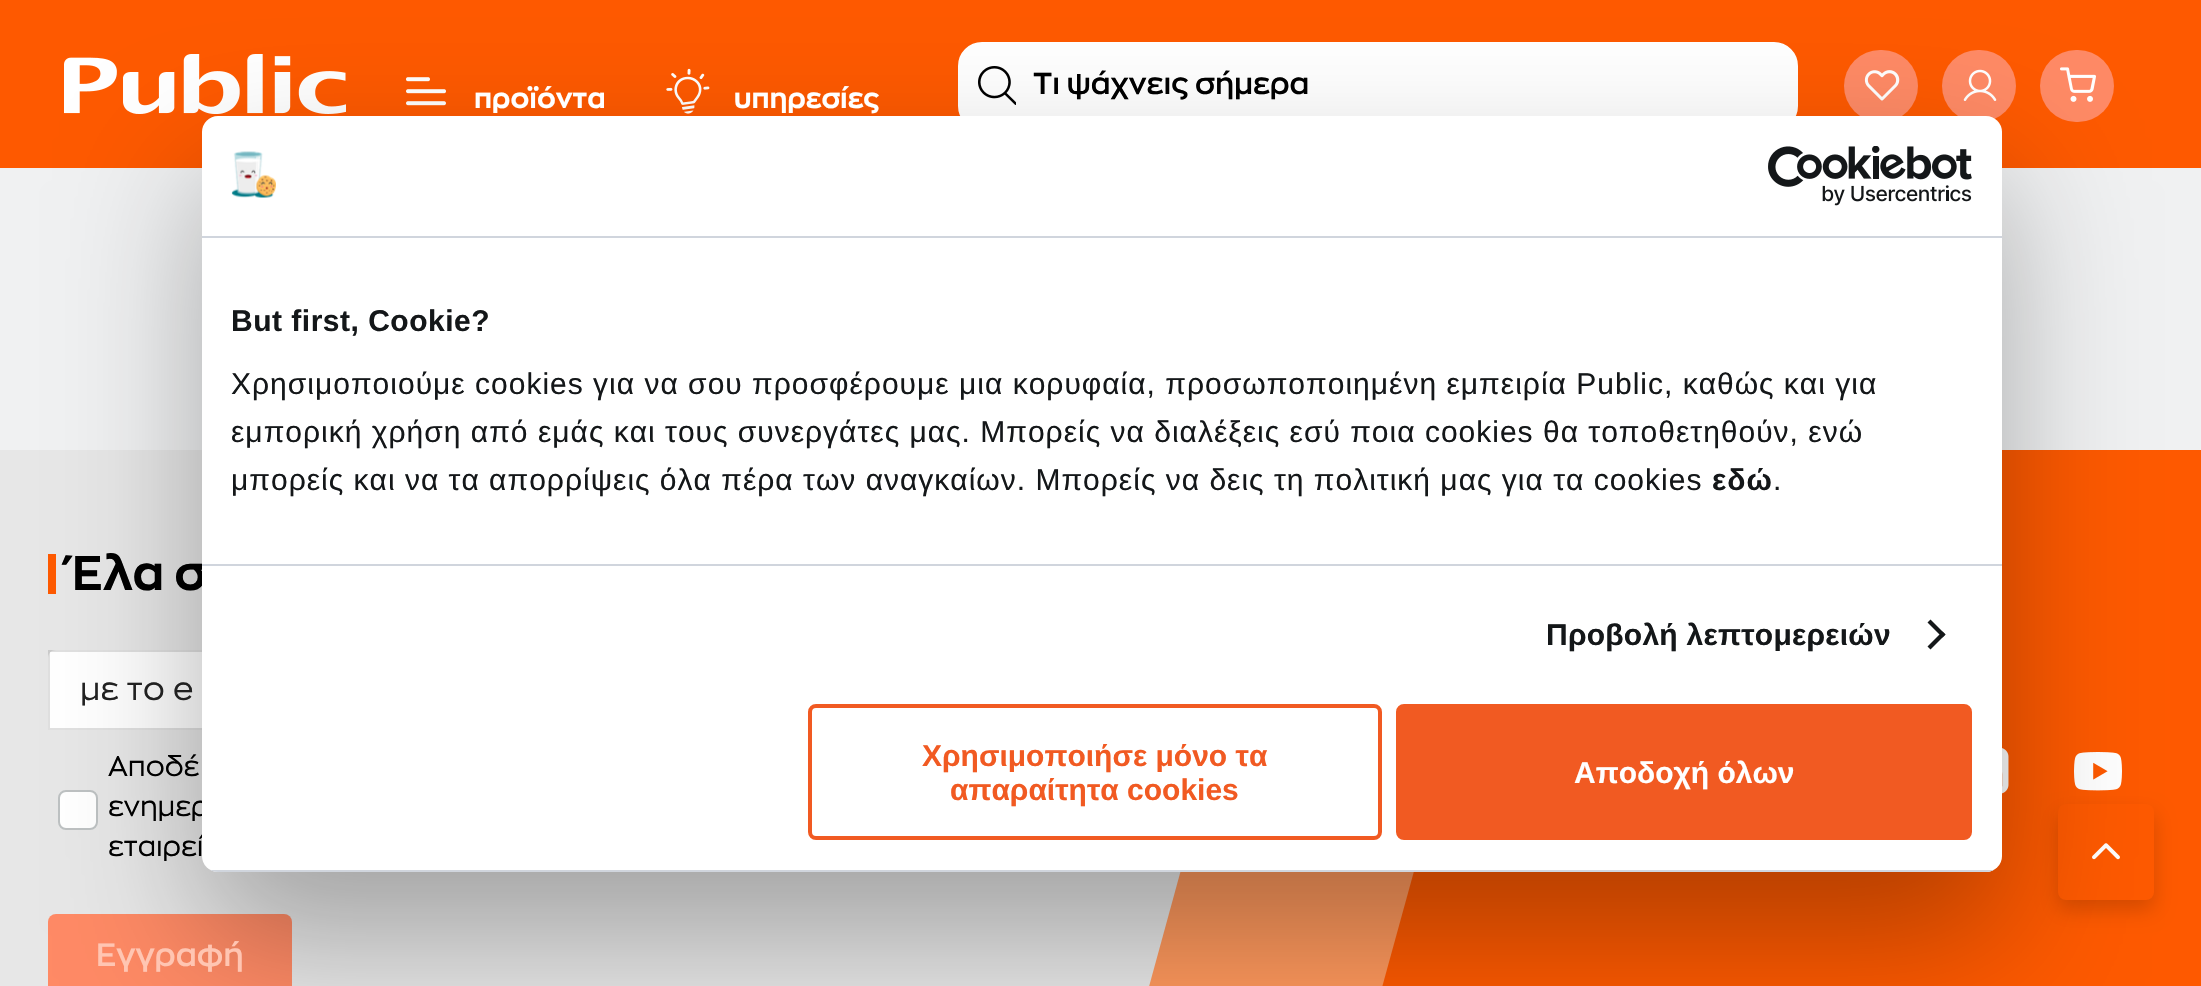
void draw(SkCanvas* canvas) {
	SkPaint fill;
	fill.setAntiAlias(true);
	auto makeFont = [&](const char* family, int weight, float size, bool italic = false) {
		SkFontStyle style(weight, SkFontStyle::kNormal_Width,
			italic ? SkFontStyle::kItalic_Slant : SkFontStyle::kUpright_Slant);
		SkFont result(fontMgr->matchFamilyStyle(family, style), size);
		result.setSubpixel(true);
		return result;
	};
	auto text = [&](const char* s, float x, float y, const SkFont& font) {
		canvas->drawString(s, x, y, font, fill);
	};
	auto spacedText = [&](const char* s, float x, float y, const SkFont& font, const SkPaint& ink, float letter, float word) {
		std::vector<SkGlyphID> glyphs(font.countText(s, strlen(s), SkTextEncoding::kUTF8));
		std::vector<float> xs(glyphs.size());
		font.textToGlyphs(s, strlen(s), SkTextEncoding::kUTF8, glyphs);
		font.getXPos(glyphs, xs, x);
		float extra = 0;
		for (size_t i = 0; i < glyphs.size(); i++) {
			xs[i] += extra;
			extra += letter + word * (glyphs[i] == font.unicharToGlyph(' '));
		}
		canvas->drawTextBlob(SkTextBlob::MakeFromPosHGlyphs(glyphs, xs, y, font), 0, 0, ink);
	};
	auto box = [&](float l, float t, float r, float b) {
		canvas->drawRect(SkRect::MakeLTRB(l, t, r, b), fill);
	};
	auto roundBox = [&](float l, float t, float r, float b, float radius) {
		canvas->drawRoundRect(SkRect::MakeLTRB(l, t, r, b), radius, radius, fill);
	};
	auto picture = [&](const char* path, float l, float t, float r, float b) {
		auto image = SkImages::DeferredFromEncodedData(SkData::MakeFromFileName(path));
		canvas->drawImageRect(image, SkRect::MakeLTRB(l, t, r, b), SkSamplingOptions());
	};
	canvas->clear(0xFFF0F1F2);
	fill.setColor(0xFFFE5900);
	box(0, 0, 2201, 168);
	picture("image0.png", 64, 54, 346, 114);
	picture("image1.png", 406, 77, 446, 106);
	picture("image2.png", 666, 68, 710, 114);
	fill.setColor(0xFFFFFFFF);
	canvas->drawRoundRect(SkRect::MakeLTRB(959, 43, 1797, 129), 23, 23, fill);
	fill.setStyle(SkPaint::kStroke_Style);
	fill.setStrokeWidth(2);
	canvas->drawRoundRect(SkRect::MakeLTRB(959, 43, 1797, 129), 23, 23, fill);
	picture("image3.png", 978, 66, 1016, 105);
	fill.setStyle(SkPaint::kFill_Style);
	fill.setColor(0xFFFF8A65);
	roundBox(1844, 50, 1918, 122, 36);
	picture("image4.png", 1864, 70, 1900, 101);
	roundBox(1942, 50, 2016, 122, 36);
	picture("image5.png", 1963, 69, 1997, 101);
	roundBox(2040, 50, 2114, 122, 36);
	picture("image6.png", 2060, 67, 2096, 102);
	fill.setColor(0xFFE7E7E7);
	box(0, 450, 1181, 986);
	fill.setColor(0xFFFF985C);
	canvas->drawPath(SkPathBuilder().moveTo(1314, 384).lineTo(1969, 384).lineTo(1969, 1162).lineTo(1101, 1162).close().detach(), fill);
	canvas->save();
	canvas->clipRect(SkRect::MakeLTRB(0, 450, 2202, 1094));
	fill.setColor(0xFFFE5900);
	canvas->drawPath(SkPathBuilder().moveTo(1548, 384).lineTo(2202, 384).lineTo(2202, 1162).lineTo(1334, 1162).close().detach(), fill);
	canvas->restore();
	box(48, 554, 56, 594);
	fill.setColor(0xFFFFFFFF);
	canvas->drawPath(SkPathBuilder().moveTo(56, 650).lineTo(846, 650).cubicTo(850.5f, 650, 854, 653.5f, 854, 658).lineTo(854, 730).lineTo(48, 730).lineTo(48, 658).cubicTo(48, 653.5f, 51.5f, 650, 56, 650).close().detach(), fill);
	fill.setColor(0x1F000000);
	canvas->drawPath(SkPathBuilder().moveTo(48, 650).lineTo(72, 650).lineTo(72, 652).lineTo(50, 652).close().detach(), fill);
	fill.setColor(0xFFE0E0E0);
	canvas->drawPath(SkPathBuilder().moveTo(72, 730).lineTo(48, 730).lineTo(50, 728).lineTo(72, 728).close().detach(), fill);
	fill.setColor(0x1F000000);
	canvas->drawPath(SkPathBuilder().moveTo(48, 730).lineTo(48, 650).lineTo(50, 652).lineTo(50, 728).close().detach(), fill);
	fill.setColor(0xFFE0E0E0);
	box(72, 650, 202, 652);
	box(72, 728, 202, 730);
	fill.setColor(0xFFFFFFFF);
	canvas->drawRoundRect(SkRect::MakeLTRB(59, 791, 97, 829), 7, 7, fill);
	fill.setStyle(SkPaint::kStroke_Style);
	fill.setColor(0xFFBDC1C2);
	canvas->drawRoundRect(SkRect::MakeLTRB(59, 791, 97, 829), 7, 7, fill);
	fill.setStyle(SkPaint::kFill_Style);
	fill.setColor(0xFFFF8A65);
	roundBox(48, 914, 292, 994, 8);
	picture("image7.png", 2002, 748, 2009, 794);
	picture("image8.png", 2074, 752, 2122, 791);
	fill.setColor(0x29000000);
	fill.setMaskFilter(SkMaskFilter::MakeBlur(kNormal_SkBlurStyle, 10));
	canvas->drawRoundRect(SkRect::MakeLTRB(2058, 814, 2154, 910), 8, 8, fill);
	fill.setMaskFilter(nullptr);
	fill.setColor(0xFFFE5900);
	roundBox(2058, 804, 2154, 900, 8);
	picture("image9.png", 2092, 843, 2120, 860);
	fill.setColor(0x4D000000);
	fill.setMaskFilter(SkMaskFilter::MakeBlur(kNormal_SkBlurStyle, 68));
	canvas->drawRoundRect(SkRect::MakeLTRB(202, 180, 2002, 936), 16, 16, fill);
	fill.setMaskFilter(nullptr);
	auto font1 = makeFont("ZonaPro", 700, 28);
	fill.setColor(0xFFFFFFFF);
	text("προϊόντα", 474, 108, font1);
	text("υπηρεσίες", 734, 108, font1);
	auto font2 = makeFont("Zona Pro", 600, 30);
	fill.setColor(0xFF000000);
	text("Τι ψάχνεις σήμερα", 1033, 94, font2);
	auto font3 = makeFont("ZonaPro", 700, 48);
	text("Έλα σ", 72, 590, font3);
	auto font4 = makeFont("Zona Pro", 400, 32);
	fill.setColor(0xFF212121);
	spacedText("με το e", 80, 700, font4, fill, 0.25f, 0);
	auto font5 = makeFont("Zona Pro", 400, 28);
	fill.setColor(0xFF000000);
	text("Αποδέ", 108, 776, font5);
	text("ενημερ", 108, 816, font5);
	text("εταιρεί", 108, 856, font5);
	auto font6 = makeFont("Zona Pro", 600, 32);
	fill.setColor(0xFFFFC5B2);
	text("Εγγραφή", 96, 966, font6);
	fill.setColor(0xFFFFFFFF);
	roundBox(202, 116, 2002, 872, 16);
	fill.setColor(0xFFD0D5DD);
	box(202, 236, 2002, 238);
	picture("image10.png", 231, 151, 276, 198);
	picture("image11.png", 1768, 146, 1972, 206);
	box(202, 564, 2002, 566);
	auto font7 = makeFont("Liberation Sans", 700, 30);
	fill.setColor(0xFF141719);
	spacedText("But first, Cookie?", 231, 331, font7, fill, 0.5f, 0);
	auto font8 = makeFont("Liberation Sans", 400, 30);
	spacedText("Χρησιμοποιούμε cookies για να σου προσφέρουμε μια κορυφαία, προσωποποιημένη εμπειρία Public, καθώς και για", 231, 394, font8, fill, 1, 0);
	spacedText("εμπορική χρήση από εμάς και τους συνεργάτες μας. Μπορείς να διαλέξεις εσύ ποια cookies θα τοποθετηθούν, ενώ", 231, 442, font8, fill, 1, 0);
	spacedText("μπορείς και να τα απορρίψεις όλα πέρα των αναγκαίων. Μπορείς να δεις τη πολιτική μας για τα cookies", 231, 490, font8, fill, 1, 0);
	spacedText("εδώ", 1712, 490, font7, fill, 1, 0);
	spacedText(".", 1773, 490, font8, fill, 1, 0);
	spacedText("Προβολή λεπτομερειών", 1546, 645, font7, fill, 0.25f, 0);
	canvas->drawPath(SkPathBuilder().moveTo(1930.5f, 619.5f).lineTo(1945.5f, 634.5f).lineTo(1942.5f, 637.5f).lineTo(1927.5f, 622.5f).close().detach(), fill);
	canvas->drawPath(SkPathBuilder().moveTo(1942.5f, 631.5f).lineTo(1945.5f, 634.5f).lineTo(1930.5f, 649.5f).lineTo(1927.5f, 646.5f).close().detach(), fill);
	canvas->save();
	canvas->clipPath(SkPathBuilder().moveTo(218, 116).lineTo(1986, 116).cubicTo(1995, 116, 2002, 123, 2002, 132).lineTo(2002, 856).cubicTo(2002, 865, 1995, 872, 1986, 872).lineTo(218, 872).cubicTo(209, 872, 202, 865, 202, 856).lineTo(202, 132).cubicTo(202, 123, 209, 116, 218, 116).close().detach(), true);
	fill.setColor(0xFFD0D5DD);
	box(202, 870, 2002, 872);
	canvas->restore();
	fill.setStyle(SkPaint::kStroke_Style);
	fill.setStrokeWidth(4);
	fill.setColor(0xFFF15A22);
	canvas->drawRoundRect(SkRect::MakeLTRB(810, 706, 1380, 838), 6, 6, fill);
	fill.setStyle(SkPaint::kFill_Style);
	text("Χρησιμοποιήσε μόνο τα", 922, 766, font7);
	text("απαραίτητα cookies", 950, 800, font7);
	canvas->drawRoundRect(SkRect::MakeLTRB(1398, 706, 1970, 838), 6, 6, fill);
	fill.setStyle(SkPaint::kStroke_Style);
	canvas->drawRoundRect(SkRect::MakeLTRB(1398, 706, 1970, 838), 6, 6, fill);
	fill.setStyle(SkPaint::kFill_Style);
	fill.setColor(0xFFFFFFFF);
	text("Αποδοχή όλων", 1574, 783, font7);
}
